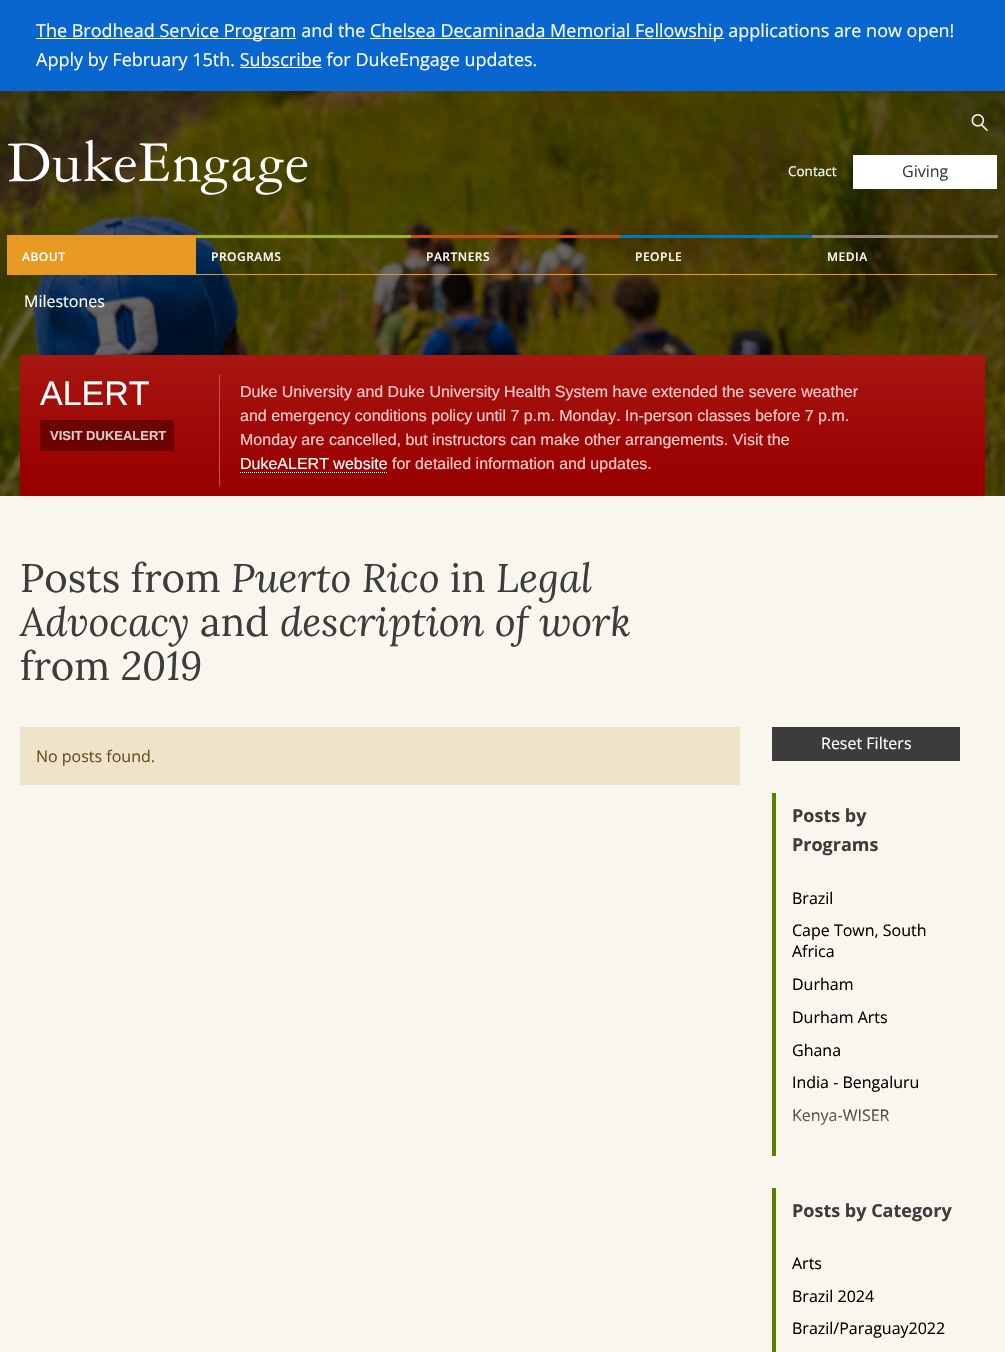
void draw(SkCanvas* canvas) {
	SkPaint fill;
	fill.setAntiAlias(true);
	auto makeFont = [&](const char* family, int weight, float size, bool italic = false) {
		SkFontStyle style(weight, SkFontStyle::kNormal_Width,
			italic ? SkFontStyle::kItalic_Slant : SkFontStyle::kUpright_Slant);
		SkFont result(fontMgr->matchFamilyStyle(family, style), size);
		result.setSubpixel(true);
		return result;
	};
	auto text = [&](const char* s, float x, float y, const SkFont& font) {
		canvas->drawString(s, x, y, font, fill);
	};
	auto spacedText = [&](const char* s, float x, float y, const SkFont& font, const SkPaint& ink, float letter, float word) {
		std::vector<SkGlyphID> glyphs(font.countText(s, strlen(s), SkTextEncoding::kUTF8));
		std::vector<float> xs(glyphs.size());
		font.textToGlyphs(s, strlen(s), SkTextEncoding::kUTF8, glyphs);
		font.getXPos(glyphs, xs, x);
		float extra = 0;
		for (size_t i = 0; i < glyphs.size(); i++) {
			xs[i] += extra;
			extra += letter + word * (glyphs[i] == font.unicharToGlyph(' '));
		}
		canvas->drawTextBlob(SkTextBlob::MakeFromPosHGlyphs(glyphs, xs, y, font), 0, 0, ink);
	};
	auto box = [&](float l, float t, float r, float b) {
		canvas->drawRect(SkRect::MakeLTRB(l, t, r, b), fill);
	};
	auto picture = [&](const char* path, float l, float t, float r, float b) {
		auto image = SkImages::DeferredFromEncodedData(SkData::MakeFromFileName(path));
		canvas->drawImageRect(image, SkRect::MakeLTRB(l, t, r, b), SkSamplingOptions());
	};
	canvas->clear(0xFFF9F6EE);
	fill.setColor(0xFF0966CF);
	box(0, 0, 1005, 91);
	fill.setColor(0xFFFFFFFF);
	box(36, 38, 296, 39);
	box(370, 38, 724, 39);
	box(240, 67, 322, 68);
	picture("image0.png", 0, 91, 1005, 496);
	picture("image1.png", 8, 139, 308, 195);
	picture("image2.png", 971, 114, 988, 131);
	box(853, 155, 997, 189);
	fill.setColor(0xFFE89923);
	box(196, 274, 997, 275);
	box(7, 235, 196, 275);
	fill.setColor(0xFFA1B70D);
	box(196, 235, 411, 238);
	fill.setColor(0xFFC84E00);
	box(411, 235, 620, 238);
	fill.setColor(0xFF0577B1);
	box(620, 235, 812, 238);
	fill.setColor(0xFF988675);
	box(812, 235, 998, 238);
	picture("image3.png", 20, 355, 985, 496);
	fill.setColor(0xFF6D0300);
	box(40, 420, 172, 450);
	box(42, 421, 174, 451);
	fill.setColor(0xFFC15752);
	box(219, 375, 220, 486);
	fill.setStyle(SkPaint::kStroke_Style);
	fill.setStrokeWidth(1);
	fill.setColor(0xFFFFFFFF);
	fill.setPathEffect(SkDashPathEffect::Make({{1, 1}}, 0));
	canvas->drawPath(SkPathBuilder().moveTo(240, 472.5f).lineTo(388, 472.5f).detach(), fill);
	fill.setPathEffect(nullptr);
	fill.setStyle(SkPaint::kFill_Style);
	fill.setColor(0xFFEEE4C9);
	box(20, 727, 740, 785);
	fill.setColor(0xFF3C3C3C);
	box(772, 727, 960, 761);
	fill.setColor(0xFF578200);
	box(772, 793, 776, 1156);
	box(772, 1188, 776, 1352);
	auto font1 = makeFont("Open Sans", 400, 18);
	fill.setColor(0xFFFFFFFF);
	text("The Brodhead Service Program and the", 36, 37, font1);
	text("Chelsea Decaminada Memorial Fellowship applications are now open!", 370, 37, font1);
	text("Apply by February 15th. Subscribe for DukeEngage updates.", 36, 66, font1);
	auto font2 = makeFont("Open Sans", 400, 13.5f);
	text("Contact", 788, 176, font2);
	auto font3 = makeFont("Open Sans", 400, 16);
	fill.setColor(0xFF3C3C3C);
	text("Giving", 902, 177, font3);
	auto font4 = makeFont("Open Sans", 600, 12);
	fill.setColor(0xFFFFFFFF);
	spacedText("ABOUT", 22, 261, font4, fill, 0.5f, 0);
	spacedText("PROGRAMS", 211, 261, font4, fill, 0.5f, 0);
	spacedText("PARTNERS", 426, 261, font4, fill, 0.5f, 0);
	spacedText("PEOPLE", 635, 261, font4, fill, 0.5f, 0);
	spacedText("MEDIA", 827, 261, font4, fill, 0.5f, 0);
	text("Milestones", 24, 307, font3);
	auto font5 = makeFont("Liberation Sans", 400, 34);
	text("ALERT", 40, 405, font5);
	auto font6 = makeFont("Liberation Sans", 700, 13);
	fill.setColor(0xFFDCCBCB);
	text("VISIT DUKEALERT", 50, 440, font6);
	auto font7 = makeFont("Liberation Sans", 400, 16);
	fill.setColor(0xFFFFCCCC);
	text("Duke University and Duke University Health System have extended the severe weather", 240, 397, font7);
	text("and emergency conditions policy until 7 p.m. Monday. In-person classes before 7 p.m.", 240, 421, font7);
	text("Monday are cancelled, but instructors can make other arrangements. Visit the", 240, 445, font7);
	fill.setColor(0xFFFFFFFF);
	text("DukeALERT website", 240, 469, font7);
	fill.setColor(0xFFFFCCCC);
	text("for detailed information and updates.", 392, 469, font7);
	auto font8 = makeFont("Lora", 400, 40);
	fill.setColor(0xFF3C3C3C);
	text("Posts from", 20, 592, font8);
	auto font9 = makeFont("Lora", 400, 40, true);
	text("Puerto Rico", 231, 592, font9);
	text("in", 450, 592, font8);
	text("Legal", 496, 592, font9);
	text("Advocacy", 20, 636, font9);
	text("and", 200, 636, font8);
	text("description of work", 280, 636, font9);
	text("from", 20, 680, font8);
	text("2019", 121, 680, font9);
	fill.setColor(0xFF694C1A);
	text("No posts found.", 36, 762, font3);
	fill.setColor(0xFFFFFFFF);
	text("Reset Filters", 821, 749, font3);
	auto font10 = makeFont("Open Sans", 700, 18);
	fill.setColor(0xFF3C3C3C);
	text("Posts by", 792, 822, font10);
	text("Programs", 792, 851, font10);
	fill.setColor(0xFF000000);
	text("Brazil", 792, 904, font3);
	text("Cape Town, South", 792, 936, font3);
	text("Africa", 792, 957, font3);
	text("Durham", 792, 990, font3);
	text("Durham Arts", 792, 1023, font3);
	text("Ghana", 792, 1056, font3);
	text("India - Bengaluru", 792, 1088, font3);
	text("Kenya-WISER", 792, 1121, font3);
	{
		const SkColor colors[] = {0x00F9F6EE, 0xFFF9F6EE};
		const float stops[] = {0, 1};
		const SkPoint ends[] = {{873, 1096}, {873, 1156}};
		fill.setShader(SkGradientShader::MakeLinear(ends, colors, stops, 2, SkTileMode::kClamp));
		fill.setAlpha(255);
	}
	box(793, 1109, 889, 1125);
	fill.setShader(nullptr);
	fill.setColor(0xFF3C3C3C);
	text("Posts by Category", 792, 1217, font10);
	fill.setColor(0xFF000000);
	text("Arts", 792, 1269, font3);
	text("Brazil 2024", 792, 1302, font3);
	text("Brazil/Paraguay2022", 792, 1334, font3);
}
